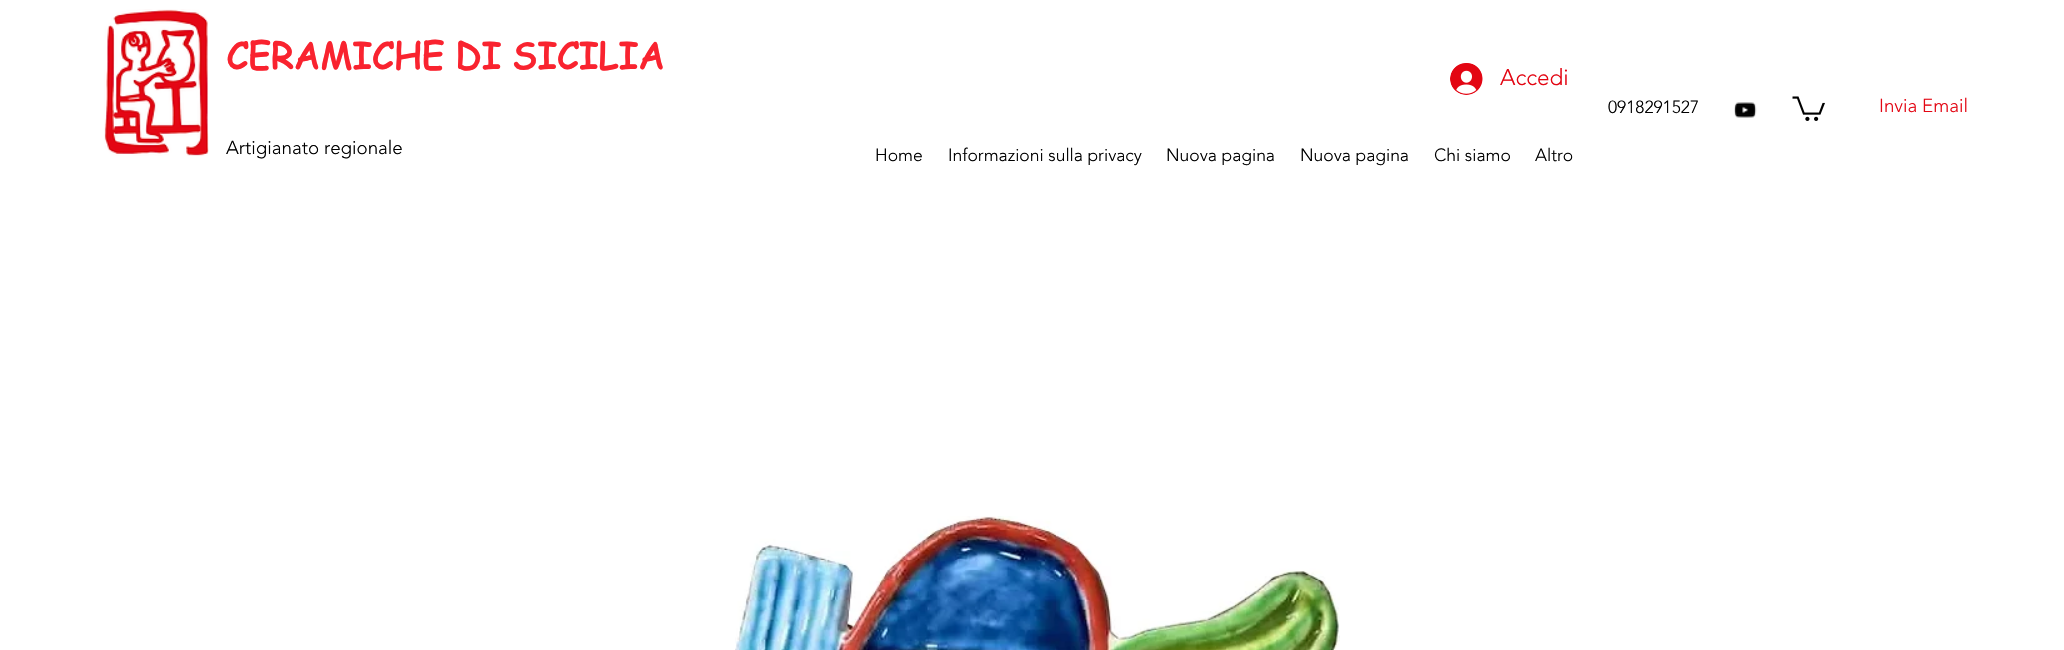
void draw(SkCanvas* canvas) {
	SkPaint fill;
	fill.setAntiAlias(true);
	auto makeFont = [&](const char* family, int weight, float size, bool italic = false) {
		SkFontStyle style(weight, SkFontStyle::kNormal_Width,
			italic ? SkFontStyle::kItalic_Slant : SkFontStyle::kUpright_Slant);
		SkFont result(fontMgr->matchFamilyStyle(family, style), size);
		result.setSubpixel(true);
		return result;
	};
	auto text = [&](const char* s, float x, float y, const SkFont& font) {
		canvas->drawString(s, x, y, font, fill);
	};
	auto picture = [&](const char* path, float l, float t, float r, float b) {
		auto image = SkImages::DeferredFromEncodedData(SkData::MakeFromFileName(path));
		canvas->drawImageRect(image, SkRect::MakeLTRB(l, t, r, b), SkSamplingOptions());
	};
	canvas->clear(0xFFFFFFFF);
	picture("image0.png", 104, 9, 209, 156);
	picture("image1.png", 1734, 102, 1757, 118);
	picture("image2.png", 1792, 96, 1825, 121);
	picture("image3.png", 1450, 63, 1483, 95);
	picture("image4.png", 735, 516, 1340, 650);
	auto font1 = makeFont("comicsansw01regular", 700, 36.25f);
	fill.setColor(0xFFF9232F);
	text("CERAMICHE DI SICILIA", 226, 69, font1);
	auto font2 = makeFont("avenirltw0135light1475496", 300, 18.75f);
	fill.setColor(0xFF000000);
	text("Artigianato regionale", 226, 154, font2);
	auto font3 = makeFont("avenirltw0135light1475496", 300, 17.5f);
	text("0918291527", 1608, 113, font3);
	fill.setColor(0xFFE30613);
	text("Invia Email", 1879, 112, font2);
	fill.setColor(0xFF000000);
	text("Home", 875, 161, font3);
	text("Informazioni sulla privacy", 948, 161, font3);
	text("Nuova pagina", 1166, 161, font3);
	text("Nuova pagina", 1300, 161, font3);
	text("Chi siamo", 1434, 161, font3);
	text("Altro", 1535, 161, font3);
	auto font4 = makeFont("avenirltw0135light1475496", 300, 22.5f);
	fill.setColor(0xFFE30613);
	text("Accedi", 1500, 85, font4);
}
